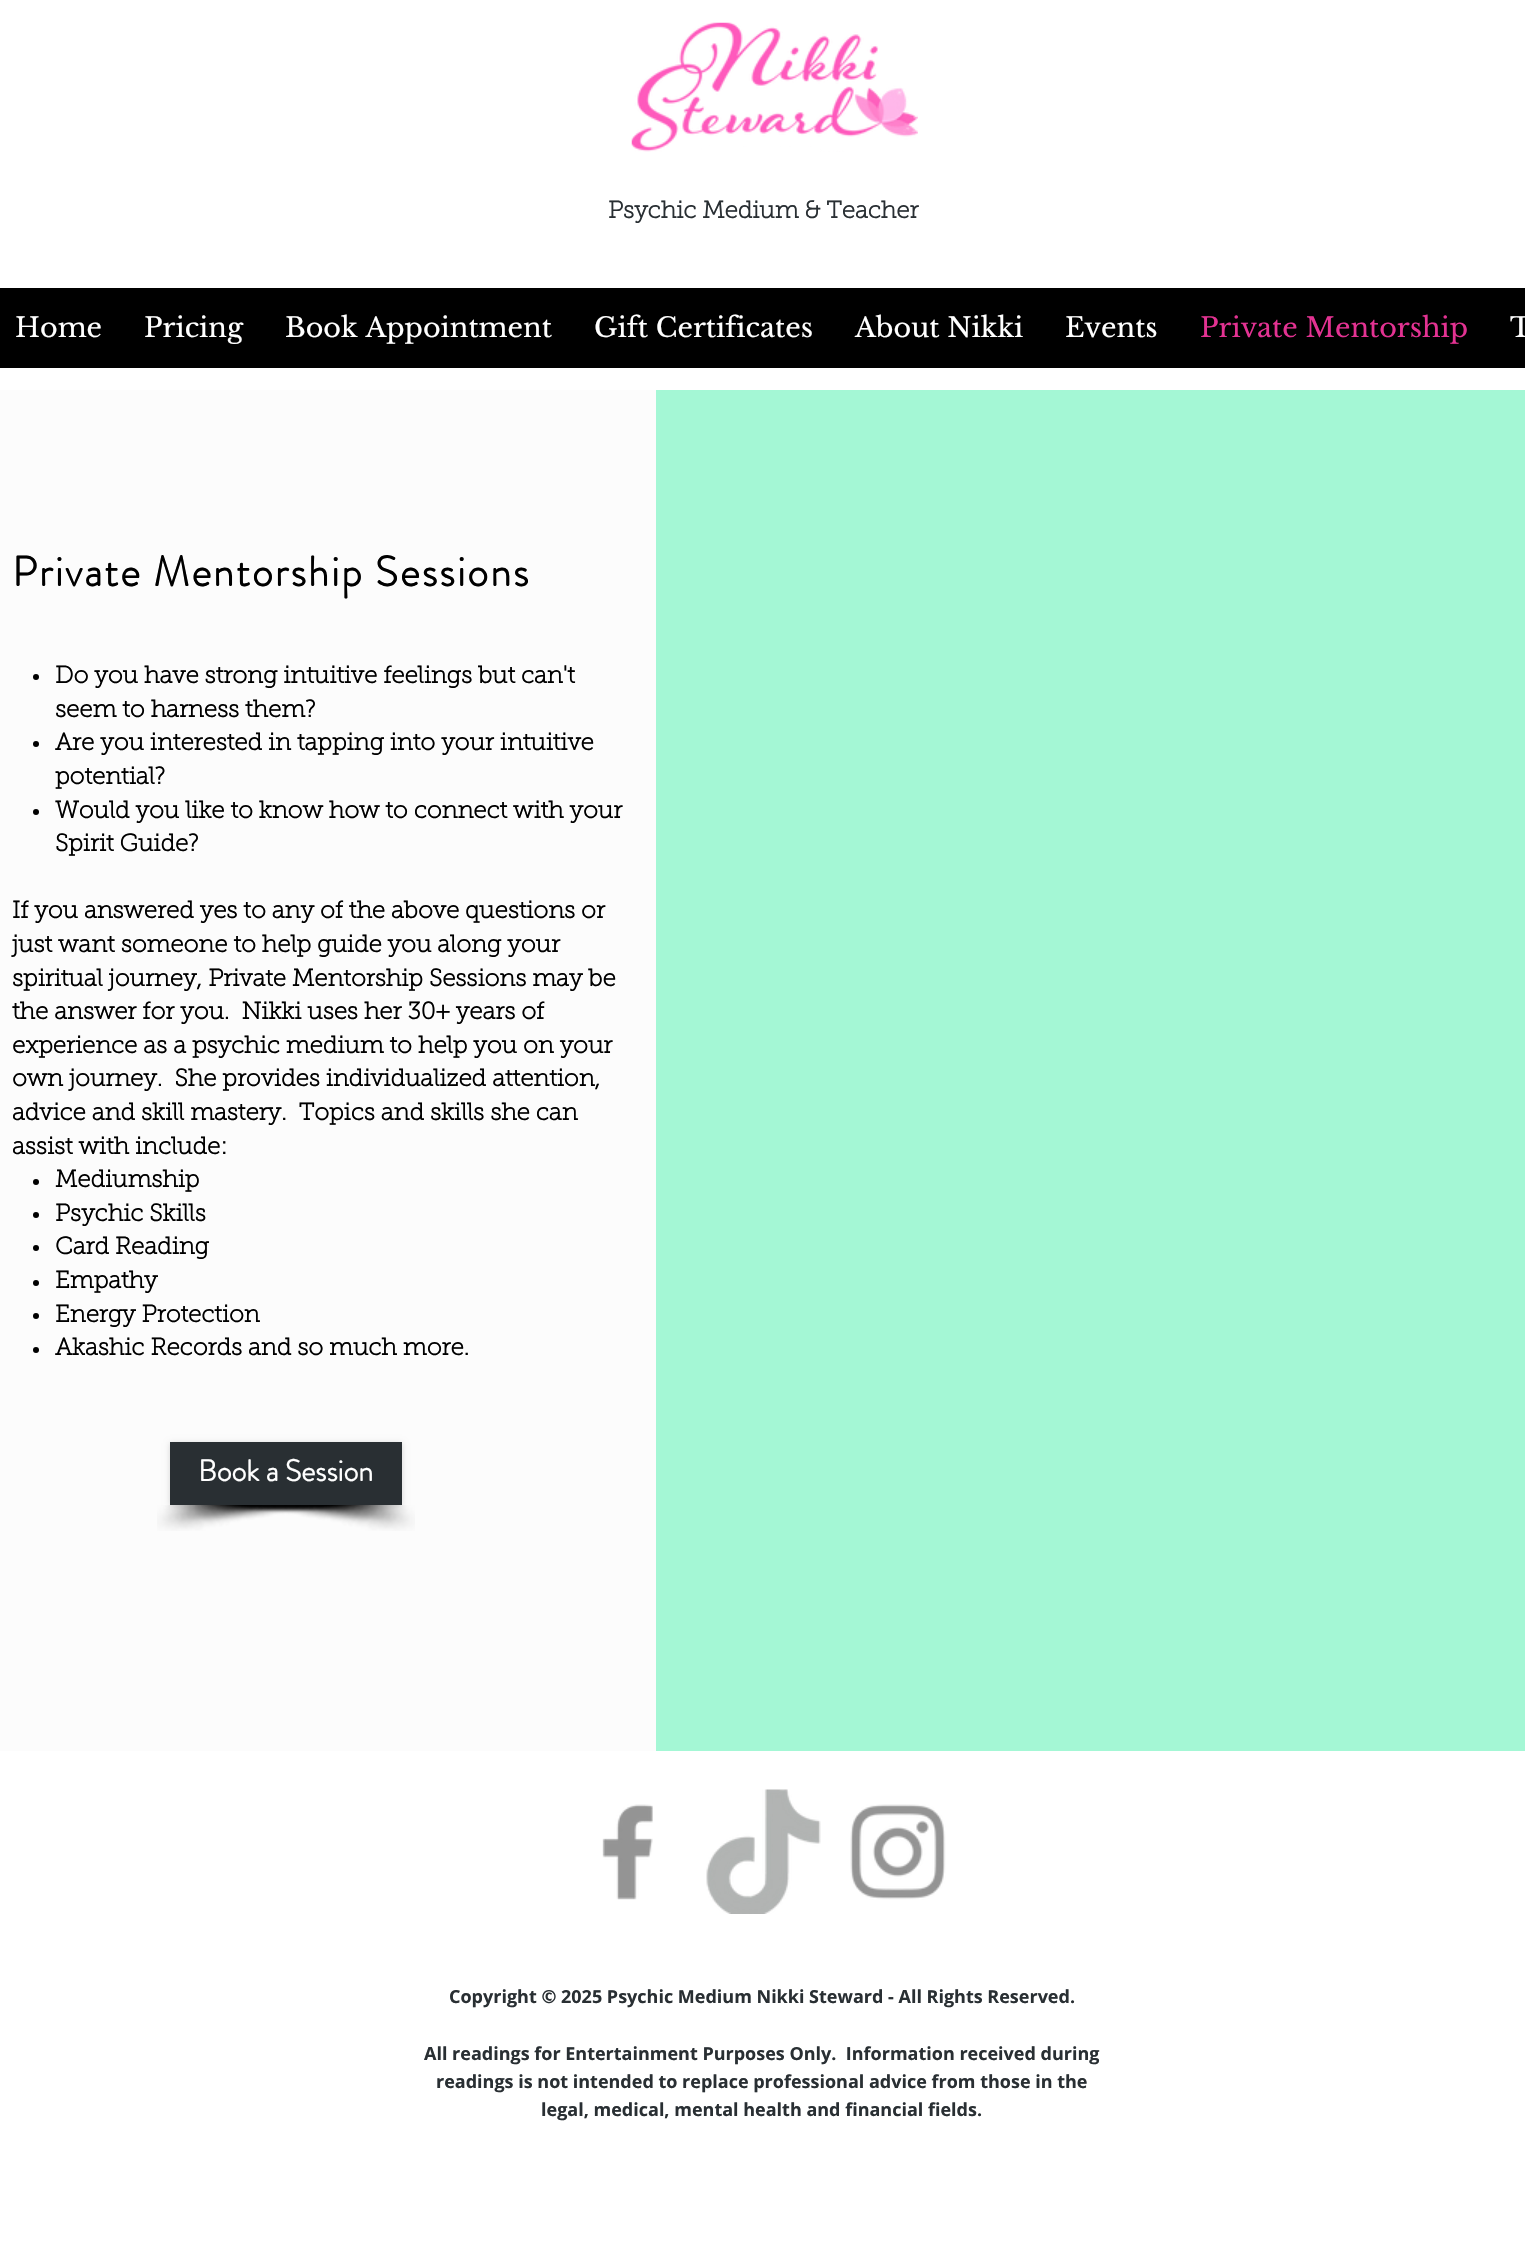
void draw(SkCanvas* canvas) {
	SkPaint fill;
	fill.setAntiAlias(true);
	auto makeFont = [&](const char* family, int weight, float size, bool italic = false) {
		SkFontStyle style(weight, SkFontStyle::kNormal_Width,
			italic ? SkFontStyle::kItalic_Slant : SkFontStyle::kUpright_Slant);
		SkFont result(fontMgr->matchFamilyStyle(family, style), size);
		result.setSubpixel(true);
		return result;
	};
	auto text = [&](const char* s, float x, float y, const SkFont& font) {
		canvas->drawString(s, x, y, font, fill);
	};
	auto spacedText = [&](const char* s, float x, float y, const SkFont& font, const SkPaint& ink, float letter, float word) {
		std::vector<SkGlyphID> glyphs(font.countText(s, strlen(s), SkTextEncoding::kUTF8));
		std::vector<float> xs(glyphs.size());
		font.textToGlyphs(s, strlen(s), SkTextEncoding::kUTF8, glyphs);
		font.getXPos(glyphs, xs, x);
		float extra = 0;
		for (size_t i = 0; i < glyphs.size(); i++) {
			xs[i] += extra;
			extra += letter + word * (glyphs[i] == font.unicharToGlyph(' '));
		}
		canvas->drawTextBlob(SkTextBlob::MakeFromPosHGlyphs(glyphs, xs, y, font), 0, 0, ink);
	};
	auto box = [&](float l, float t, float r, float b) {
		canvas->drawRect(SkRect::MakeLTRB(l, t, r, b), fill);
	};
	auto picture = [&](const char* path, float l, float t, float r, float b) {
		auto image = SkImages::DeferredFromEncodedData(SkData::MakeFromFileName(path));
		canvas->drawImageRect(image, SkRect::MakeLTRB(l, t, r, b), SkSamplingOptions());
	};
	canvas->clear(0xFFFFFFFF);
	picture("image0.png", 631, 22, 918, 152);
	fill.setColor(0xFFFFFFFF);
	box(702, 147, 820, 152);
	fill.setColor(0xFF000000);
	box(0, 288, 1525, 368);
	fill.setColor(0xFFFCFCFC);
	box(0, 390, 656, 1751);
	fill.setColor(0xFF000000);
	canvas->drawCircle(36, 677, 3, fill);
	canvas->drawCircle(36, 744, 3, fill);
	canvas->drawCircle(36, 812, 3, fill);
	canvas->drawCircle(36, 1182, 3, fill);
	canvas->drawCircle(36, 1215, 3, fill);
	canvas->drawCircle(36, 1248, 3, fill);
	canvas->drawCircle(36, 1283, 3, fill);
	canvas->drawCircle(36, 1316, 3, fill);
	canvas->drawCircle(36, 1350, 3, fill);
	picture("image1.png", 157, 1505, 380, 1531);
	picture("image2.png", 195, 1505, 415, 1531);
	fill.setColor(0x26000000);
	fill.setMaskFilter(SkMaskFilter::MakeBlur(kNormal_SkBlurStyle, 3));
	canvas->drawRect(SkRect::MakeLTRB(170, 1443, 402, 1506), fill);
	fill.setMaskFilter(nullptr);
	fill.setColor(0xFF292F33);
	box(170, 1442, 402, 1505);
	fill.setColor(0xFFA4F7D5);
	box(656, 390, 1525, 1751);
	picture("image3.png", 602, 1804, 653, 1900);
	picture("image4.png", 706, 1789, 821, 1914);
	picture("image5.png", 850, 1804, 946, 1900);
	auto font1 = makeFont("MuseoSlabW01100", 700, 24);
	fill.setColor(0xFF292F33);
	text("Psychic Medium & Teacher", 608, 218, font1);
	auto font2 = makeFont("Libre Baskerville", 400, 27);
	fill.setColor(0xFFFFFFFF);
	text("Home", 15, 337, font2);
	text("Pricing", 144, 337, font2);
	text("Book Appointment", 285, 337, font2);
	text("Gift Certificates", 594, 337, font2);
	text("About Nikki", 855, 337, font2);
	text("Events", 1065, 337, font2);
	fill.setColor(0xFFE33292);
	text("Private Mentorship", 1200, 337, font2);
	fill.setColor(0xFFFFFFFF);
	text("T", 1510, 337, font2);
	auto font3 = makeFont("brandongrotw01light", 700, 42);
	fill.setColor(0xFF000000);
	spacedText("Private Mentorship Sessions", 12, 586, font3, fill, 2.1f, 0);
	text("Do you have strong intuitive feelings but can't", 55, 683, font1);
	text("seem to harness them?", 55, 717, font1);
	text("Are you interested in tapping into your intuitive", 55, 750, font1);
	text("potential?", 55, 784, font1);
	text("Would you like to know how to connect with your", 55, 818, font1);
	text("Spirit Guide?", 55, 851, font1);
	text("If you answered yes to any of the above questions or", 12, 918, font1);
	text("just want someone to help guide you along your", 12, 952, font1);
	text("spiritual journey, Private Mentorship Sessions may be", 12, 986, font1);
	text("the answer for you.  Nikki uses her 30+ years of", 12, 1019, font1);
	text("experience as a psychic medium to help you on your", 12, 1053, font1);
	text("own journey.  She provides individualized attention,", 12, 1086, font1);
	text("advice and skill mastery.  Topics and skills she can", 12, 1120, font1);
	text("assist with include:", 12, 1154, font1);
	text("Mediumship", 55, 1187, font1);
	text("Psychic Skills", 55, 1221, font1);
	text("Card Reading", 55, 1254, font1);
	text("Empathy", 55, 1288, font1);
	text("Energy Protection", 55, 1322, font1);
	text("Akashic Records and so much more.", 55, 1355, font1);
	auto font4 = makeFont("brandongrotw01light", 700, 30);
	fill.setColor(0xFFFFFFFF);
	text("Book a Session", 198, 1481, font4);
	auto font5 = makeFont("Open Sans", 700, 18);
	fill.setColor(0xFF292F33);
	text("Copyright © 2025 Psychic Medium Nikki Steward - All Rights Reserved.", 449, 2003, font5);
	text("All readings for Entertainment Purposes Only.  Information received during", 424, 2060, font5);
	text("readings is not intended to replace professional advice from those in the", 436, 2088, font5);
	text("legal, medical, mental health and financial fields.", 541, 2116, font5);
}
